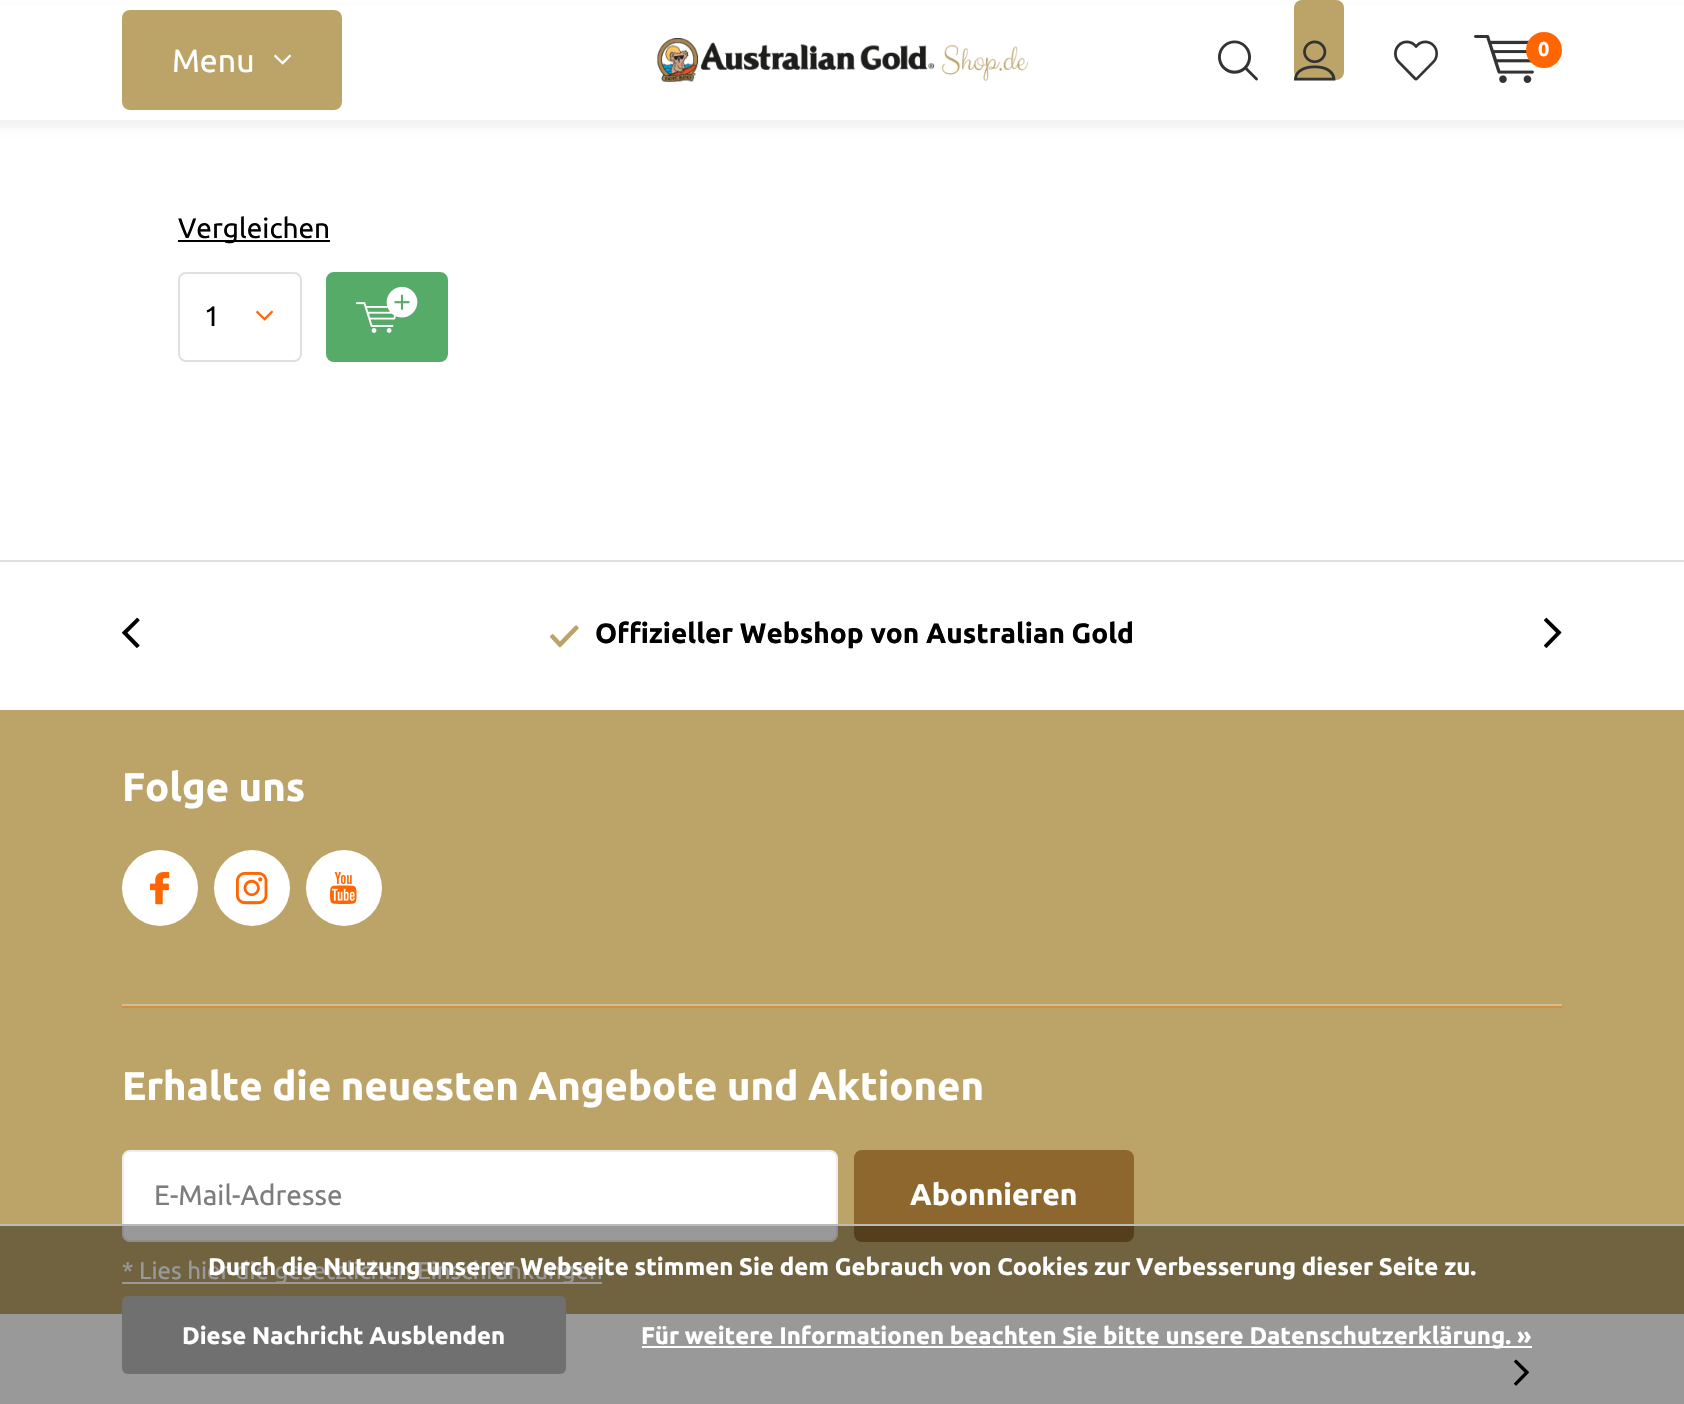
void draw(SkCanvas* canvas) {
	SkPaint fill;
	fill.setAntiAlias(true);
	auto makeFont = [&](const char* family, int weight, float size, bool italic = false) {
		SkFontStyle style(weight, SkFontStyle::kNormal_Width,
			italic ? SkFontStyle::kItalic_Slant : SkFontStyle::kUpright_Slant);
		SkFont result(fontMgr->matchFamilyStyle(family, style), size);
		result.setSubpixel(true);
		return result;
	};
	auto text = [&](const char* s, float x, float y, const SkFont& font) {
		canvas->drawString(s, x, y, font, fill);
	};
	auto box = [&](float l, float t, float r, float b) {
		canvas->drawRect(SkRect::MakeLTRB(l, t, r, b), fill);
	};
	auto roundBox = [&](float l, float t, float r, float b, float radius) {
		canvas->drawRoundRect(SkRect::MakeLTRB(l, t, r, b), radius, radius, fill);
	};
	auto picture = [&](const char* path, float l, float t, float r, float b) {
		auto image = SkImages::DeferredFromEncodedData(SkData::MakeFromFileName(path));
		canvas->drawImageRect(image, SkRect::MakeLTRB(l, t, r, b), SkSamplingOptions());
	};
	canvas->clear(0xFFFFFFFF);
	fill.setColor(0x0D000000);
	fill.setMaskFilter(SkMaskFilter::MakeBlur(kNormal_SkBlurStyle, 4));
	canvas->drawRect(SkRect::MakeLTRB(-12, 8, 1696, 128), fill);
	fill.setMaskFilter(nullptr);
	fill.setColor(0xFFFFFFFF);
	box(0, 5, 1684, 120);
	picture("image0.png", 657, 38, 1029, 82);
	fill.setColor(0xFFBCA468);
	roundBox(122, 10, 342, 110, 8);
	picture("image1.png", 274, 54, 292, 65);
	picture("image2.png", 1218, 40, 1258, 81);
	roundBox(1294, 0, 1344, 80, 8);
	picture("image3.png", 1294, 40, 1336, 81);
	picture("image4.png", 1394, 40, 1438, 81);
	picture("image5.png", 1474, 35, 1534, 83);
	fill.setColor(0xFFFF6602);
	canvas->drawCircle(1544, 50, 18, fill);
	fill.setColor(0xFF000000);
	box(178, 240, 330, 242);
	picture("image6.png", 256, 310, 274, 321);
	fill.setStyle(SkPaint::kStroke_Style);
	fill.setStrokeWidth(2);
	fill.setColor(0xFFE0E0E0);
	canvas->drawRoundRect(SkRect::MakeLTRB(179, 273, 301, 361), 7, 7, fill);
	fill.setStyle(SkPaint::kFill_Style);
	fill.setColor(0xFF55AB67);
	canvas->drawRoundRect(SkRect::MakeLTRB(327, 273, 447, 361), 7, 7, fill);
	fill.setStyle(SkPaint::kStroke_Style);
	canvas->drawRoundRect(SkRect::MakeLTRB(327, 273, 447, 361), 7, 7, fill);
	picture("image7.png", 356, 286, 418, 333);
	fill.setStyle(SkPaint::kFill_Style);
	fill.setColor(0xFFE0E0E0);
	box(0, 560, 1684, 562);
	picture("image8.png", 122, 617, 140, 648);
	picture("image9.png", 1544, 617, 1562, 648);
	picture("image10.png", 550, 625, 579, 648);
	fill.setColor(0xFFBCA468);
	box(0, 710, 1684, 1314);
	fill.setColor(0xFFFFFFFF);
	canvas->drawCircle(160, 888, 38, fill);
	picture("image11.png", 150, 872, 170, 905);
	canvas->drawCircle(252, 888, 38, fill);
	picture("image12.png", 236, 872, 268, 905);
	canvas->drawCircle(344, 888, 38, fill);
	picture("image13.png", 330, 872, 357, 904);
	fill.setColor(0xFFD0BF95);
	box(122, 1004, 1562, 1006);
	fill.setColor(0xFFD48E43);
	box(122, 1006, 1562, 1008);
	fill.setColor(0xFFFFFFFF);
	canvas->drawRoundRect(SkRect::MakeLTRB(123, 1151, 837, 1241), 7, 7, fill);
	fill.setStyle(SkPaint::kStroke_Style);
	fill.setColor(0xFFEDEDED);
	canvas->drawRoundRect(SkRect::MakeLTRB(123, 1151, 837, 1241), 7, 7, fill);
	fill.setStyle(SkPaint::kFill_Style);
	fill.setColor(0xFF8E672E);
	canvas->drawRoundRect(SkRect::MakeLTRB(855, 1151, 1133, 1241), 7, 7, fill);
	fill.setStyle(SkPaint::kStroke_Style);
	canvas->drawRoundRect(SkRect::MakeLTRB(855, 1151, 1133, 1241), 7, 7, fill);
	fill.setStyle(SkPaint::kFill_Style);
	fill.setColor(0xFFFFFFFF);
	box(122, 1282, 602, 1284);
	picture("image14.png", 1514, 1359, 1529, 1386);
	fill.setColor(0xFFBBBBBB);
	box(0, 1224, 1684, 1226);
	auto font1 = makeFont("Ubuntu", 400, 32);
	fill.setColor(0xFFFFFFFF);
	text("Menu", 172, 72, font1);
	auto font2 = makeFont("Ubuntu", 700, 20);
	text("0", 1538, 56, font2);
	auto font3 = makeFont("Ubuntu", 400, 28);
	fill.setColor(0xFF000000);
	text("Vergleichen", 178, 238, font3);
	text("1", 204, 326, font3);
	auto font4 = makeFont("Ubuntu", 700, 28);
	text("Offizieller Webshop von Australian Gold", 595, 643, font4);
	auto font5 = makeFont("Ubuntu", 700, 40);
	fill.setColor(0xFFFFFFFF);
	text("Folge uns", 122, 801, font5);
	text("Erhalte die neuesten Angebote und Aktionen", 122, 1100, font5);
	fill.setColor(0xFF7D7D7D);
	text("E-Mail-Adresse", 154, 1205, font3);
	auto font6 = makeFont("Ubuntu", 700, 30);
	fill.setColor(0xFFFFFFFF);
	text("Abonnieren", 910, 1205, font6);
	auto font7 = makeFont("Ubuntu", 400, 24);
	text("* Lies hier die gesetzlichen Einschränkungen", 122, 1279, font7);
	fill.setColor(0x66000000);
	box(0, 1226, 1684, 1404);
	auto font8 = makeFont("Ubuntu", 700, 24);
	fill.setColor(0xFFFFFFFF);
	text("Durch die Nutzung unserer Webseite stimmen Sie dem Gebrauch von Cookies zur Verbesserung dieser Seite zu.", 208, 1275, font8);
	fill.setColor(0xFF707070);
	roundBox(122, 1296, 566, 1374, 6);
	fill.setColor(0xFFFFFFFF);
	text("Diese Nachricht Ausblenden", 182, 1344, font8);
	box(642, 1346, 1532, 1348);
	text("Für weitere Informationen beachten Sie bitte unsere Datenschutzerklärung. »", 641, 1344, font8);
}
